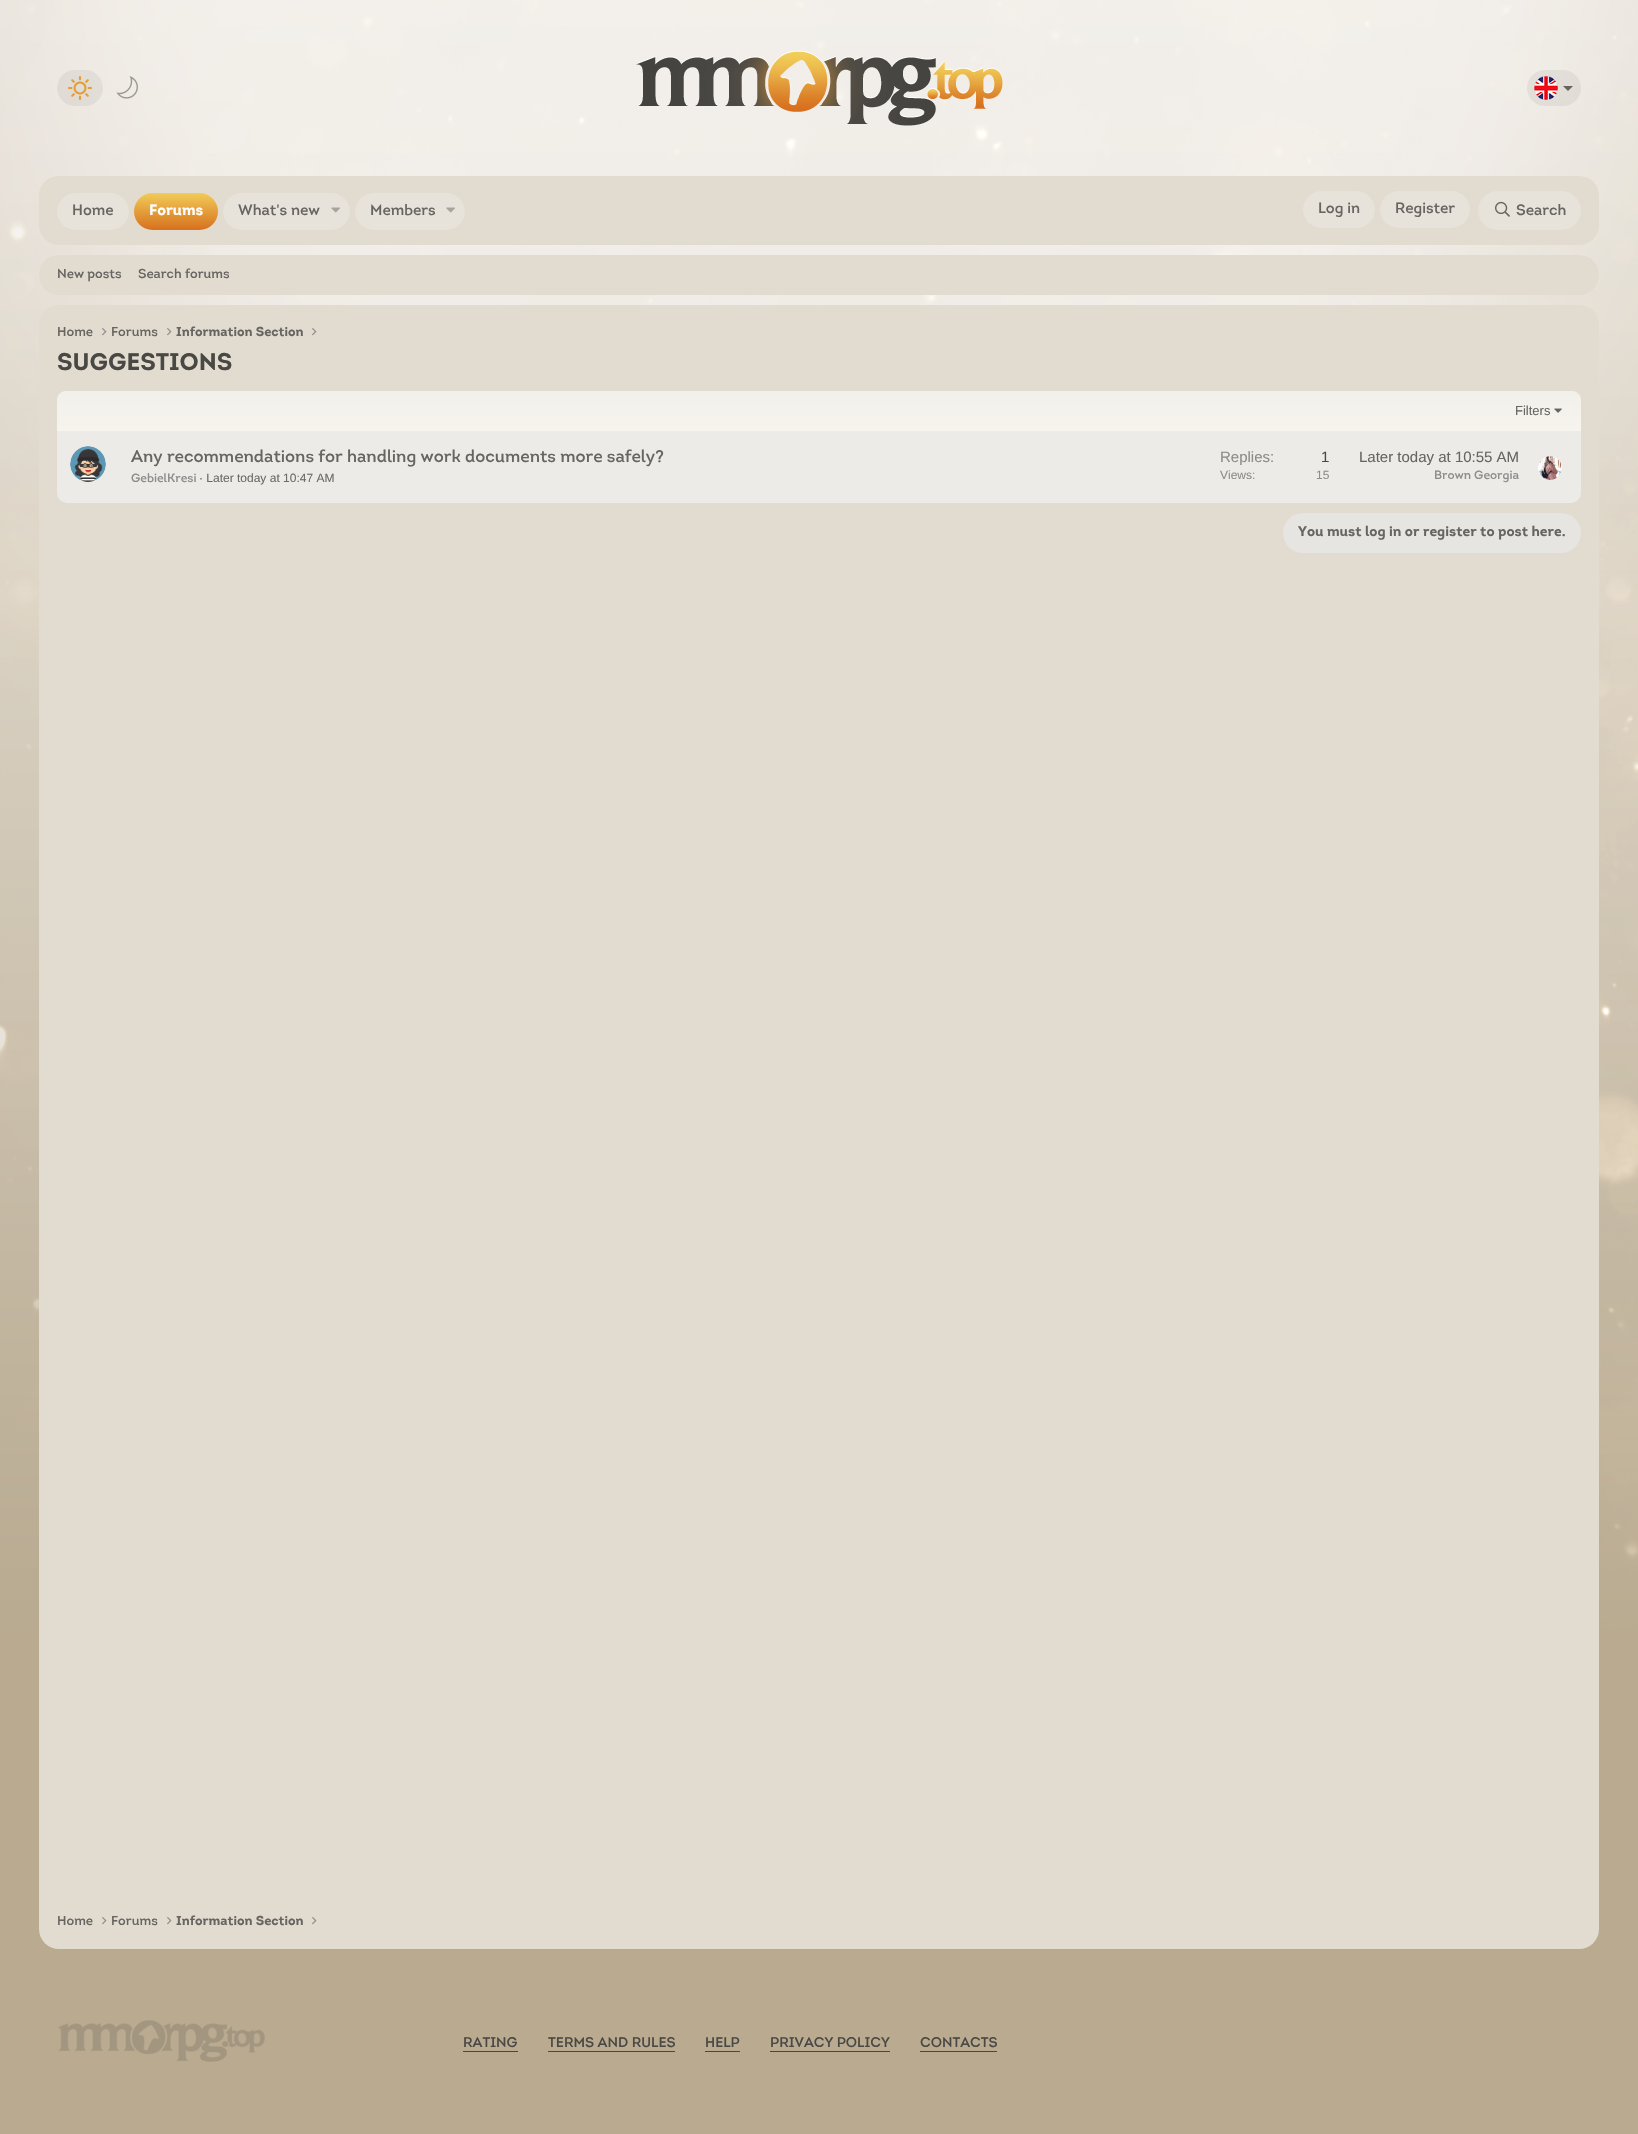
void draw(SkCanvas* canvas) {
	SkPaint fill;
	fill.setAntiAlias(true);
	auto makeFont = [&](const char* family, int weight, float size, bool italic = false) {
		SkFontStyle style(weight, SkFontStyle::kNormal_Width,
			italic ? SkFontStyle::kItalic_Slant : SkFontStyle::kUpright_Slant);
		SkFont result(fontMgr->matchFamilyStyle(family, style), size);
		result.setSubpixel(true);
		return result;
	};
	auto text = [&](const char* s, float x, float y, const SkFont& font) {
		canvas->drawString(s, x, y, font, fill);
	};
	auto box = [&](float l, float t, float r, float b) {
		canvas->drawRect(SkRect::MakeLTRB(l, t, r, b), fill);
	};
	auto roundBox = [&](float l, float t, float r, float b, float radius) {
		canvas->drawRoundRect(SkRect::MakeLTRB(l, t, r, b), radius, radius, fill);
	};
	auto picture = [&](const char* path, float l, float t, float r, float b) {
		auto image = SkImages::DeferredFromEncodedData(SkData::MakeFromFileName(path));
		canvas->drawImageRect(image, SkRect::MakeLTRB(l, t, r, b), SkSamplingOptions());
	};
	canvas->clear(0xFFB9AA90);
	picture("image0.png", 0, 0, 1638, 1630);
	fill.setColor(0x40BAB8B4);
	roundBox(57, 70, 103, 106, 18);
	picture("image1.png", 68, 76, 92, 100);
	picture("image2.png", 116, 76, 138, 99);
	picture("image3.png", 636, 50, 1003, 126);
	roundBox(1527, 70, 1581, 106, 18);
	picture("image4.png", 1534, 76, 1558, 100);
	fill.setColor(0xFF656461);
	canvas->drawPath(SkPathBuilder().moveTo(1563, 86).lineTo(1573, 86).lineTo(1568, 91).close().detach(), fill);
	fill.setColor(0xFFE2DBD0);
	roundBox(39, 176, 1599, 245, 20);
	fill.setColor(0xFFE7E2DA);
	roundBox(57, 193, 129, 230, 18.5f);
	{
		const SkColor colors[] = {0xFFF1CC57, 0xFFD7701F};
		const float stops[] = {0, 1};
		const SkPoint ends[] = {{176, 193}, {176, 230}};
		fill.setShader(SkGradientShader::MakeLinear(ends, colors, stops, 2, SkTileMode::kClamp));
		fill.setAlpha(255);
	}
	roundBox(134, 193, 218, 230, 18.5f);
	fill.setShader(nullptr);
	fill.setColor(0xFFE7E2DA);
	roundBox(223, 193, 350, 230, 18.5f);
	picture("image5.png", 331, 207, 340, 213);
	roundBox(355, 193, 465, 230, 18.5f);
	picture("image5.png", 446, 207, 455, 213);
	roundBox(1303, 191, 1375, 228, 18.5f);
	roundBox(1380, 191, 1470, 228, 18.5f);
	roundBox(1478, 191, 1581, 230, 19.5f);
	picture("image6.png", 1495, 201, 1510, 217);
	fill.setColor(0xFFE2DBD0);
	roundBox(39, 255, 1599, 295, 20);
	roundBox(39, 305, 1599, 1949, 20);
	picture("image7.png", 102, 328, 107, 336);
	picture("image7.png", 167, 328, 172, 336);
	picture("image7.png", 312, 328, 317, 336);
	fill.setColor(0xFFEDEBE7);
	roundBox(57, 391, 1581, 503, 10);
	{
		const SkColor colors[] = {0xFFF7F4EE, 0xFFF2F0EB};
		const float stops[] = {0, 1};
		const SkPoint ends[] = {{819, 431}, {819, 391}};
		fill.setShader(SkGradientShader::MakeLinear(ends, colors, stops, 2, SkTileMode::kClamp));
		fill.setAlpha(255);
	}
	canvas->drawPath(SkPathBuilder().moveTo(66, 391).lineTo(1572, 391).cubicTo(1577, 391, 1581, 395, 1581, 400).lineTo(1581, 431).lineTo(57, 431).lineTo(57, 400).cubicTo(57, 395, 61, 391, 66, 391).close().detach(), fill);
	picture("image8.png", 1554, 408, 1562, 413);
	picture("image9.png", 70, 446, 106, 482);
	picture("image10.png", 1538, 456, 1562, 480);
	fill.setShader(nullptr);
	fill.setColor(0xFFE7E5E1);
	roundBox(1283, 513, 1581, 553, 20);
	picture("image7.png", 102, 1917, 107, 1925);
	picture("image7.png", 167, 1917, 172, 1925);
	picture("image7.png", 312, 1917, 317, 1925);
	picture("image11.png", 58, 2020, 265, 2062);
	fill.setColor(0xFF4A4844);
	box(463, 2051, 518, 2052);
	box(548, 2051, 675, 2052);
	box(705, 2051, 740, 2052);
	box(770, 2051, 890, 2052);
	box(920, 2051, 997, 2052);
	auto font1 = makeFont("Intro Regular", 400, 15);
	fill.setColor(0xFF676561);
	text("Home", 72, 215, font1);
	auto font2 = makeFont("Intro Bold", 700, 15);
	fill.setColor(0xFFFFFFFF);
	text("Forums", 149, 215, font2);
	fill.setColor(0xFF676561);
	text("What's new", 238, 215, font1);
	text("Members", 370, 215, font1);
	text("Log in", 1318, 213, font1);
	text("Register", 1395, 213, font1);
	text("Search", 1516, 215, font1);
	auto font3 = makeFont("Intro Regular", 400, 13);
	text("New posts", 57, 278, font3);
	text("Search forums", 138, 278, font3);
	text("Home", 57, 336, font3);
	text("Forums", 111, 336, font3);
	auto font4 = makeFont("Intro Bold", 700, 13);
	text("Information Section", 176, 336, font4);
	auto font5 = makeFont("Intro Bold", 700, 24);
	fill.setColor(0xFF4A4844);
	text("SUGGESTIONS", 57, 370, font5);
	auto font6 = makeFont("Liberation Sans", 400, 13);
	fill.setColor(0xFF676561);
	text("Filters", 1515, 415, font6);
	auto font7 = makeFont("Intro Regular", 400, 17);
	text("Any recommendations for handling work documents more safely?", 131, 462, font7);
	auto font8 = makeFont("Intro Regular", 400, 12);
	fill.setColor(0xFF8C8C8C);
	text("GebielKresi", 131, 482, font8);
	auto font9 = makeFont("Liberation Sans", 400, 12);
	fill.setColor(0xFF6B6A68);
	text("· Later today at 10:47 AM", 199, 482, font9);
	auto font10 = makeFont("Liberation Sans", 400, 15);
	fill.setColor(0xFF8C8C8C);
	text("Replies:", 1220, 462, font10);
	fill.setColor(0xFF4A4844);
	text("1", 1321, 462, font10);
	fill.setColor(0xFF8C8C8C);
	text("Views:", 1220, 479, font9);
	text("15", 1316, 479, font9);
	fill.setColor(0xFF676561);
	text("Later today at 10:55 AM", 1359, 462, font10);
	fill.setColor(0xFF8C8C8C);
	text("Brown Georgia", 1434, 479, font8);
	auto font11 = makeFont("Intro Bold", 700, 14);
	fill.setColor(0xFF676561);
	text("You must log in or register to post here.", 1298, 536, font11);
	text("Home", 57, 1925, font3);
	text("Forums", 111, 1925, font3);
	text("Information Section", 176, 1925, font4);
	auto font12 = makeFont("Intro Regular", 400, 14);
	fill.setColor(0xFF4A4844);
	text("RATING", 463, 2047, font12);
	text("TERMS AND RULES", 548, 2047, font12);
	text("HELP", 705, 2047, font12);
	text("PRIVACY POLICY", 770, 2047, font12);
	text("CONTACTS", 920, 2047, font12);
}
